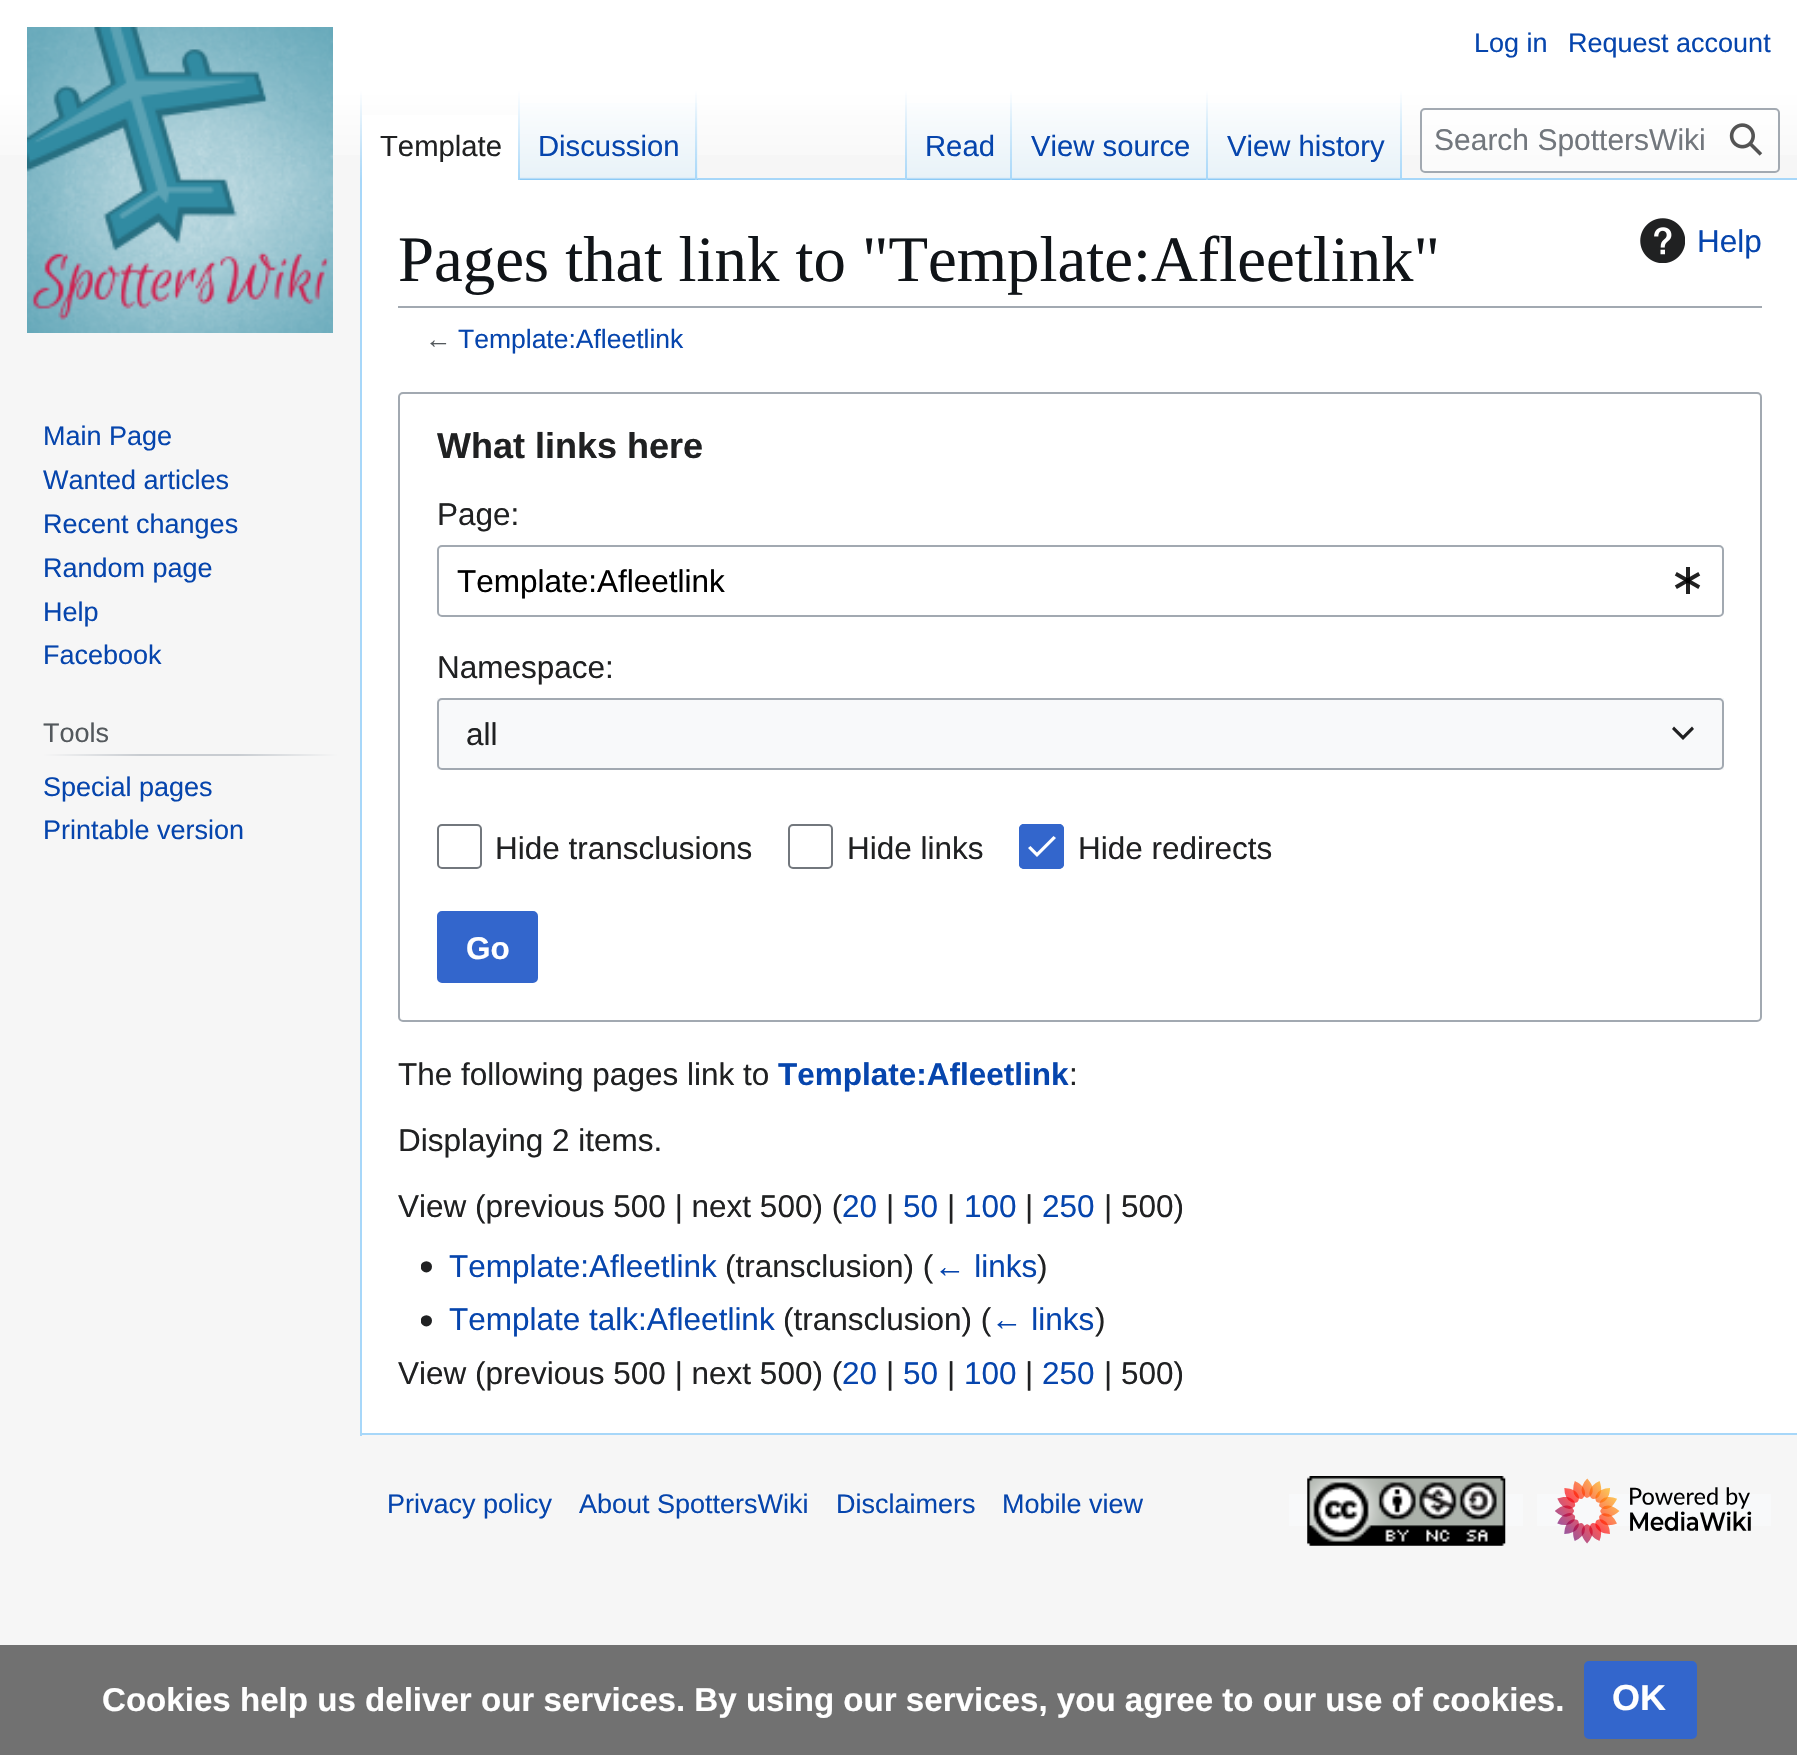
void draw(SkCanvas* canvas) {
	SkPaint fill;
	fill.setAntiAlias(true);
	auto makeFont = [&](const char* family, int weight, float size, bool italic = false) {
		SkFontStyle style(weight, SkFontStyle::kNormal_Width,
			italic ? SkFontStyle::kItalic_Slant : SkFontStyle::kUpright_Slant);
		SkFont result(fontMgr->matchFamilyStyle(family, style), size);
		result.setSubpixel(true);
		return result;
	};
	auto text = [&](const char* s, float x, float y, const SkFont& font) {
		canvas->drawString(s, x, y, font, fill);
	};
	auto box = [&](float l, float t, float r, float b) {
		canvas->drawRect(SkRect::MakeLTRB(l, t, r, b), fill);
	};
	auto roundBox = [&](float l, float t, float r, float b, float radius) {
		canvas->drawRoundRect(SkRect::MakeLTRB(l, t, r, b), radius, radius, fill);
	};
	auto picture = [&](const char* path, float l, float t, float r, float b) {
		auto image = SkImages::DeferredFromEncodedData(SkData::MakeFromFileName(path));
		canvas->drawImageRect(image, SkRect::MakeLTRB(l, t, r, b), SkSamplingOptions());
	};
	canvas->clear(0xFFF6F6F6);
	{
		const SkColor colors[] = {0xFFFFFFFF, 0xFFF6F6F6};
		const float stops[] = {0.5f, 1};
		const SkPoint ends[] = {{899, 0}, {899, 180}};
		fill.setShader(SkGradientShader::MakeLinear(ends, colors, stops, 2, SkTileMode::kClamp));
		fill.setAlpha(255);
	}
	box(0, 0, 1797, 155);
	fill.setShader(nullptr);
	fill.setColor(0xFFA7D7F9);
	box(360, 1433, 1797, 1435);
	box(360, 178, 362, 1436);
	{
		const SkColor colors[] = {0x00A7D7F9, 0xFFA7D7F9};
		const float stops[] = {0, 1};
		const SkPoint ends[] = {{361, 90}, {361, 180}};
		fill.setShader(SkGradientShader::MakeLinear(ends, colors, stops, 2, SkTileMode::kClamp));
		fill.setAlpha(255);
	}
	box(360, 90, 362, 180);
	fill.setShader(nullptr);
	fill.setColor(0xFFFFFFFF);
	box(362, 115, 518, 180);
	{
		const SkColor colors[] = {0xFFFFFFFF, 0xFFA7D7F9};
		const float stops[] = {0, 1};
		const SkPoint ends[] = {{519, 90}, {519, 180}};
		fill.setShader(SkGradientShader::MakeLinear(ends, colors, stops, 2, SkTileMode::kClamp));
		fill.setAlpha(255);
	}
	box(518, 90, 520, 180);
	{
		const SkColor colors[] = {0xFF77C1F6, 0xFFE8F2F8, 0xFFFFFFFF};
		const float stops[] = {0, 0.03f, 1};
		const SkPoint ends[] = {{609, 180}, {609, 90}};
		fill.setShader(SkGradientShader::MakeLinear(ends, colors, stops, 3, SkTileMode::kClamp));
		fill.setAlpha(255);
	}
	box(520, 103, 698, 180);
	{
		const SkColor colors[] = {0x00A7D7F9, 0xFFA7D7F9};
		const float stops[] = {0, 1};
		const SkPoint ends[] = {{696, 90}, {696, 180}};
		fill.setShader(SkGradientShader::MakeLinear(ends, colors, stops, 2, SkTileMode::kClamp));
		fill.setAlpha(255);
	}
	box(695, 90, 697, 180);
	fill.setShader(nullptr);
	fill.setColor(0xFFA7D7F9);
	box(698, 178, 1797, 180);
	{
		const SkColor colors[] = {0x00A7D7F9, 0xFFA7D7F9};
		const float stops[] = {0, 1};
		const SkPoint ends[] = {{906, 90}, {906, 180}};
		fill.setShader(SkGradientShader::MakeLinear(ends, colors, stops, 2, SkTileMode::kClamp));
		fill.setAlpha(255);
	}
	box(905, 90, 907, 180);
	{
		const SkColor colors[] = {0xFF77C1F6, 0xFFE8F2F8, 0xFFFFFFFF};
		const float stops[] = {0, 0.03f, 1};
		const SkPoint ends[] = {{960, 180}, {960, 90}};
		fill.setShader(SkGradientShader::MakeLinear(ends, colors, stops, 3, SkTileMode::kClamp));
		fill.setAlpha(255);
	}
	box(907, 103, 1013, 180);
	{
		const SkColor colors[] = {0x00A7D7F9, 0xFFA7D7F9};
		const float stops[] = {0, 1};
		const SkPoint ends[] = {{1011, 90}, {1011, 180}};
		fill.setShader(SkGradientShader::MakeLinear(ends, colors, stops, 2, SkTileMode::kClamp));
		fill.setAlpha(255);
	}
	box(1010, 90, 1012, 180);
	{
		const SkColor colors[] = {0xFF77C1F6, 0xFFE8F2F8, 0xFFFFFFFF};
		const float stops[] = {0, 0.03f, 1};
		const SkPoint ends[] = {{1110, 180}, {1110, 90}};
		fill.setShader(SkGradientShader::MakeLinear(ends, colors, stops, 3, SkTileMode::kClamp));
		fill.setAlpha(255);
	}
	box(1013, 103, 1208, 180);
	{
		const SkColor colors[] = {0x00A7D7F9, 0xFFA7D7F9};
		const float stops[] = {0, 1};
		const SkPoint ends[] = {{1207, 90}, {1207, 180}};
		fill.setShader(SkGradientShader::MakeLinear(ends, colors, stops, 2, SkTileMode::kClamp));
		fill.setAlpha(255);
	}
	box(1206, 90, 1208, 180);
	{
		const SkColor colors[] = {0xFF77C1F6, 0xFFE8F2F8, 0xFFFFFFFF};
		const float stops[] = {0, 0.03f, 1};
		const SkPoint ends[] = {{1305, 180}, {1305, 90}};
		fill.setShader(SkGradientShader::MakeLinear(ends, colors, stops, 3, SkTileMode::kClamp));
		fill.setAlpha(255);
	}
	box(1208, 103, 1402, 180);
	{
		const SkColor colors[] = {0x00A7D7F9, 0xFFA7D7F9};
		const float stops[] = {0, 1};
		const SkPoint ends[] = {{1401, 90}, {1401, 180}};
		fill.setShader(SkGradientShader::MakeLinear(ends, colors, stops, 2, SkTileMode::kClamp));
		fill.setAlpha(255);
	}
	box(1400, 90, 1402, 180);
	fill.setShader(nullptr);
	fill.setColor(0x80FFFFFF);
	canvas->drawRoundRect(SkRect::MakeLTRB(1421, 109, 1779, 172), 4, 4, fill);
	fill.setStyle(SkPaint::kStroke_Style);
	fill.setStrokeWidth(2);
	fill.setColor(0xFFA2A9B1);
	canvas->drawRoundRect(SkRect::MakeLTRB(1421, 109, 1779, 172), 4, 4, fill);
	picture("image0.png", 1729, 123, 1763, 156);
	picture("image1.png", 27, 27, 333, 333);
	fill.setStyle(SkPaint::kFill_Style);
	{
		const SkColor colors[] = {0xFFF6F6F6, 0xFFC8CCD1, 0xFFC8CCD1, 0xFFF6F6F6};
		const float stops[] = {0, 0.33f, 0.66f, 1};
		const SkPoint ends[] = {{43, 755}, {338, 755}};
		fill.setShader(SkGradientShader::MakeLinear(ends, colors, stops, 4, SkTileMode::kClamp));
		fill.setAlpha(255);
	}
	box(43, 754, 338, 756);
	fill.setShader(nullptr);
	fill.setColor(0xFFFFFFFF);
	box(362, 180, 1797, 1433);
	fill.setColor(0xFFA2A9B1);
	box(398, 306, 1762, 308);
	picture("image2.png", 1640, 218, 1685, 263);
	fill.setStyle(SkPaint::kStroke_Style);
	canvas->drawRoundRect(SkRect::MakeLTRB(399, 393, 1761, 1021), 4, 4, fill);
	canvas->drawRoundRect(SkRect::MakeLTRB(438, 546, 1723, 616), 4, 4, fill);
	picture("image3.png", 1674, 567, 1701, 594);
	fill.setStyle(SkPaint::kFill_Style);
	fill.setColor(0xFFF8F9FA);
	box(437, 698, 1724, 770);
	fill.setStyle(SkPaint::kStroke_Style);
	fill.setColor(0xFFA2A9B1);
	canvas->drawRoundRect(SkRect::MakeLTRB(438, 699, 1723, 769), 4, 4, fill);
	fill.setStyle(SkPaint::kFill_Style);
	fill.setColor(0xFF202021);
	canvas->drawPath(SkPathBuilder().moveTo(1692, 726.5f).lineTo(1683, 735.5f).lineTo(1674, 726.5f).lineTo(1672, 729).lineTo(1683, 740).lineTo(1694, 729).close().detach(), fill);
	fill.setStyle(SkPaint::kStroke_Style);
	fill.setColor(0xFF72777D);
	canvas->drawRoundRect(SkRect::MakeLTRB(438, 825, 481, 868), 4, 4, fill);
	canvas->drawRoundRect(SkRect::MakeLTRB(789, 825, 832, 868), 4, 4, fill);
	fill.setStyle(SkPaint::kFill_Style);
	fill.setColor(0xFF3366CC);
	roundBox(1019, 824, 1064, 869, 5);
	fill.setColor(0xFFFFFFFF);
	canvas->drawPath(SkPathBuilder().moveTo(1037, 852.5f).lineTo(1030.5f, 846).lineTo(1028, 848).lineTo(1037, 857).lineTo(1056, 838).lineTo(1053.5f, 836).close().detach(), fill);
	fill.setStyle(SkPaint::kStroke_Style);
	fill.setColor(0xFF3366CC);
	canvas->drawRoundRect(SkRect::MakeLTRB(1020, 825, 1063, 868), 4, 4, fill);
	fill.setStyle(SkPaint::kFill_Style);
	canvas->drawRoundRect(SkRect::MakeLTRB(438, 912, 537, 982), 4, 4, fill);
	fill.setStyle(SkPaint::kStroke_Style);
	canvas->drawRoundRect(SkRect::MakeLTRB(438, 912, 537, 982), 4, 4, fill);
	picture("image4.png", 421, 1261, 432, 1273);
	picture("image5.png", 421, 1315, 432, 1327);
	fill.setStyle(SkPaint::kFill_Style);
	fill.setColor(0xFFF8F9FA);
	box(1289, 1494, 1523, 1526);
	picture("image6.png", 1307, 1476, 1506, 1546);
	box(1537, 1494, 1771, 1526);
	picture("image7.png", 1555, 1478, 1752, 1544);
	fill.setColor(0xFF717171);
	box(0, 1645, 1797, 1755);
	fill.setColor(0xFF3366CC);
	canvas->drawRoundRect(SkRect::MakeLTRB(1585, 1662, 1696, 1738), 4, 4, fill);
	fill.setStyle(SkPaint::kStroke_Style);
	canvas->drawRoundRect(SkRect::MakeLTRB(1585, 1662, 1696, 1738), 4, 4, fill);
	auto font1 = makeFont("Liberation Sans", 400, 27);
	fill.setStyle(SkPaint::kFill_Style);
	fill.setColor(0xFF0645AD);
	text("Log in", 1474, 52, font1);
	text("Request account", 1568, 52, font1);
	auto font2 = makeFont("Liberation Sans", 400, 29.25f);
	fill.setColor(0xFF202122);
	text("Template", 380, 156, font2);
	fill.setColor(0xFF0645AD);
	text("Discussion", 538, 156, font2);
	text("Read", 925, 156, font2);
	text("View source", 1031, 156, font2);
	text("View history", 1227, 156, font2);
	auto font3 = makeFont("Liberation Sans", 400, 30);
	fill.setColor(0xFF72777D);
	text("Search SpottersWiki", 1434, 150, font3);
	fill.setColor(0xFF0645AD);
	text("Main Page", 43, 445, font1);
	text("Wanted articles", 43, 489, font1);
	text("Recent changes", 43, 533, font1);
	text("Random page", 43, 577, font1);
	text("Help", 43, 621, font1);
	text("Facebook", 43, 664, font1);
	fill.setColor(0xFF54595D);
	text("Tools", 43, 742, font1);
	fill.setColor(0xFF0645AD);
	text("Special pages", 43, 796, font1);
	text("Printable version", 43, 839, font1);
	auto font4 = makeFont("Liberation Serif", 400, 64.75f);
	fill.setColor(0xFF101418);
	text("Pages that link to \"Template:Afleetlink\"", 398, 281, font4);
	auto font5 = makeFont("Liberation Sans", 400, 31.5f);
	fill.setColor(0xFF0645AD);
	text("Help", 1697, 252, font5);
	auto font6 = makeFont("Liberation Sans", 400, 26.5f);
	fill.setColor(0xFF54595D);
	text("←", 425, 348, font6);
	fill.setColor(0xFF0645AD);
	text("Template:Afleetlink", 458, 348, font6);
	auto font7 = makeFont("Liberation Sans", 700, 36);
	fill.setColor(0xFF202122);
	text("What links here", 437, 458, font7);
	text("Page:", 437, 525, font5);
	fill.setColor(0xFF000000);
	text("Template:Afleetlink", 457, 592, font5);
	fill.setColor(0xFF202122);
	text("Namespace:", 437, 678, font5);
	text("all", 466, 745, font5);
	text("Hide transclusions", 495, 859, font5);
	text("Hide links", 847, 859, font5);
	text("Hide redirects", 1078, 859, font5);
	auto font8 = makeFont("Liberation Sans", 700, 31.5f);
	fill.setColor(0xFFFFFFFF);
	text("Go", 466, 959, font8);
	fill.setColor(0xFF202122);
	text("The following pages link to", 398, 1085, font5);
	fill.setColor(0xFF0645AD);
	text("Template:Afleetlink", 778, 1085, font8);
	fill.setColor(0xFF202122);
	text(":", 1069, 1085, font5);
	text("Displaying 2 items.", 398, 1151, font5);
	text("View (previous 500 | next 500) (", 398, 1217, font5);
	fill.setColor(0xFF0645AD);
	text("20", 842, 1217, font5);
	fill.setColor(0xFF202122);
	text("|", 886, 1217, font5);
	fill.setColor(0xFF0645AD);
	text("50", 903, 1217, font5);
	fill.setColor(0xFF202122);
	text("|", 947, 1217, font5);
	fill.setColor(0xFF0645AD);
	text("100", 964, 1217, font5);
	fill.setColor(0xFF202122);
	text("|", 1025, 1217, font5);
	fill.setColor(0xFF0645AD);
	text("250", 1042, 1217, font5);
	fill.setColor(0xFF202122);
	text("| 500)", 1104, 1217, font5);
	fill.setColor(0xFF0645AD);
	text("Template:Afleetlink", 449, 1277, font5);
	fill.setColor(0xFF202122);
	text("(transclusion) (", 725, 1277, font5);
	fill.setColor(0xFF0645AD);
	text("← links", 934, 1277, font5);
	fill.setColor(0xFF202122);
	text(")", 1037, 1277, font5);
	fill.setColor(0xFF0645AD);
	text("Template talk:Afleetlink", 449, 1330, font5);
	fill.setColor(0xFF202122);
	text("(transclusion) (", 783, 1330, font5);
	fill.setColor(0xFF0645AD);
	text("← links", 991, 1330, font5);
	fill.setColor(0xFF202122);
	text(")", 1095, 1330, font5);
	text("View (previous 500 | next 500) (", 398, 1384, font5);
	fill.setColor(0xFF0645AD);
	text("20", 842, 1384, font5);
	fill.setColor(0xFF202122);
	text("|", 886, 1384, font5);
	fill.setColor(0xFF0645AD);
	text("50", 903, 1384, font5);
	fill.setColor(0xFF202122);
	text("|", 947, 1384, font5);
	fill.setColor(0xFF0645AD);
	text("100", 964, 1384, font5);
	fill.setColor(0xFF202122);
	text("|", 1025, 1384, font5);
	fill.setColor(0xFF0645AD);
	text("250", 1042, 1384, font5);
	fill.setColor(0xFF202122);
	text("| 500)", 1104, 1384, font5);
	fill.setColor(0xFF0645AD);
	text("Privacy policy", 387, 1513, font1);
	text("About SpottersWiki", 579, 1513, font1);
	text("Disclaimers", 836, 1513, font1);
	text("Mobile view", 1002, 1513, font1);
	auto font9 = makeFont("Liberation Sans", 700, 33.1f);
	fill.setColor(0xFFFFFFFF);
	text("Cookies help us deliver our services. By using our services, you agree to our use of cookies.", 102, 1711, font9);
	text("OK", 1612, 1710, font7);
}
